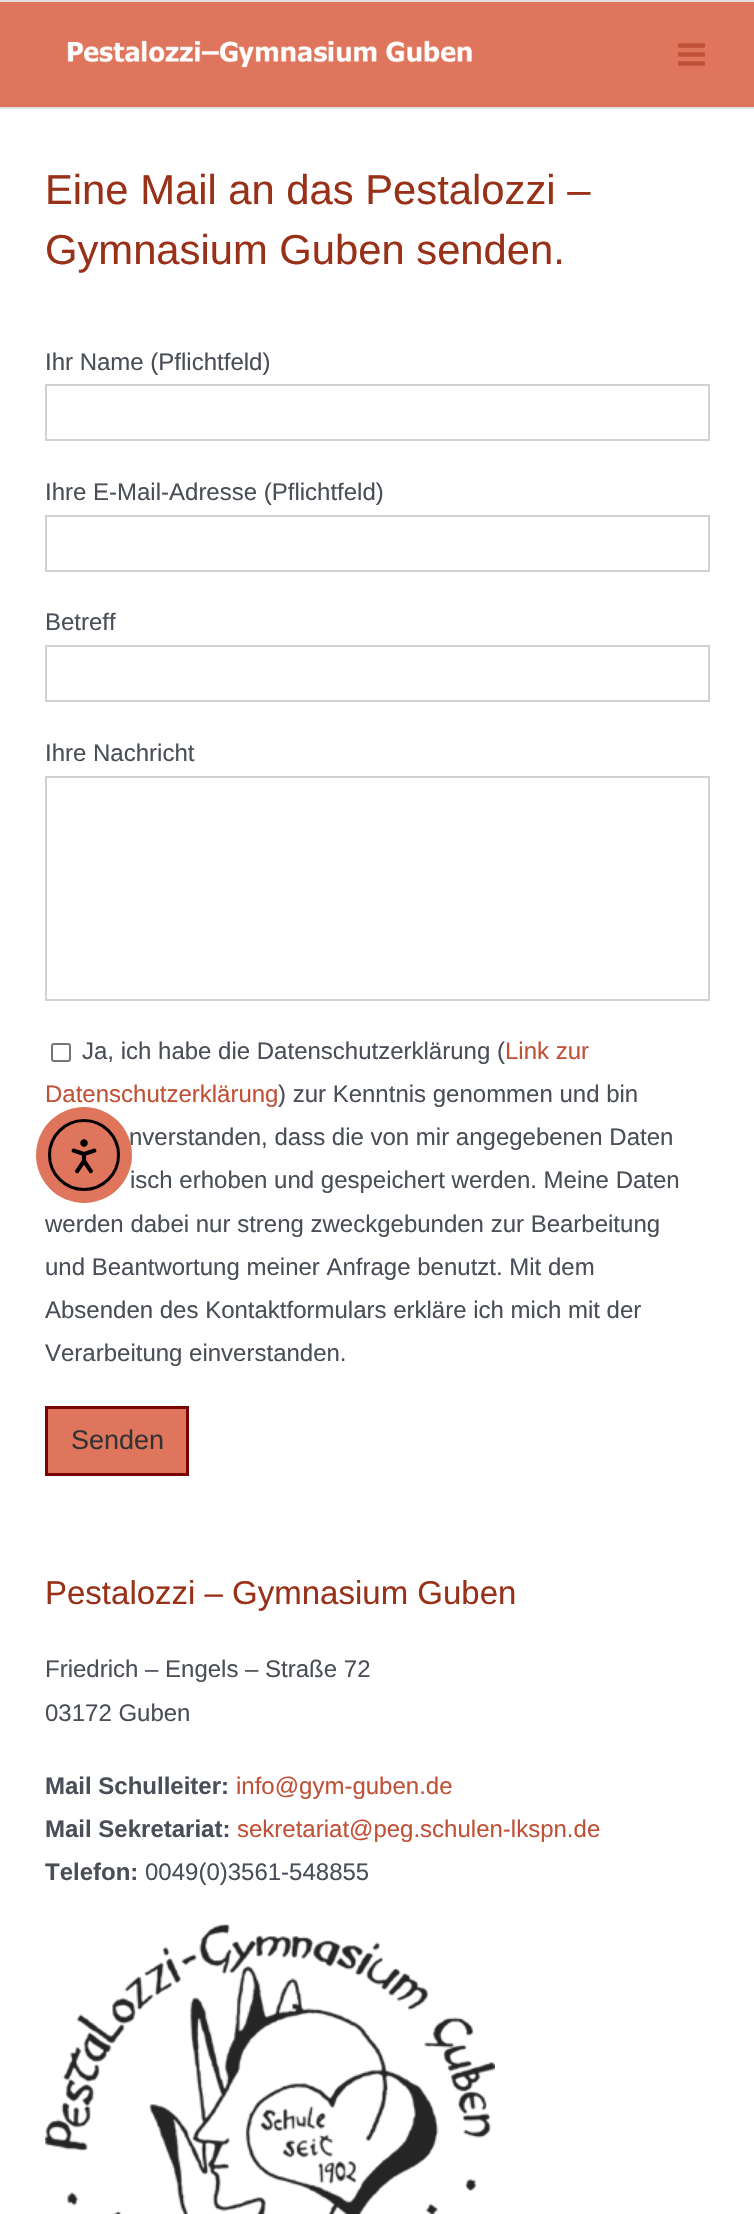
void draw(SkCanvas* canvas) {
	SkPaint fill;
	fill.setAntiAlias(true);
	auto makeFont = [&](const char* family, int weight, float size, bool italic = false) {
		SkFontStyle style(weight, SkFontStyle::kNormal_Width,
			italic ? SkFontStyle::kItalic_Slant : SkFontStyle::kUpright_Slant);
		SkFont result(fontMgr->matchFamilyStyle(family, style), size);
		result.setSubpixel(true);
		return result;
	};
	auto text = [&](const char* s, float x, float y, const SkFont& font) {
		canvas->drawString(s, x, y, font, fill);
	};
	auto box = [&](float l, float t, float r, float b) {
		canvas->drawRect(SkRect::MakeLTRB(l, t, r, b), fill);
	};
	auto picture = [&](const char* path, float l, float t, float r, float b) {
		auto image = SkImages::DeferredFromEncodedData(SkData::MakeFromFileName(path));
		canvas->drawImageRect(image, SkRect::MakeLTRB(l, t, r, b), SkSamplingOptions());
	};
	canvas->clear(0xFFFFFFFF);
	fill.setColor(0xFFE1E1E1);
	box(0, 0, 754, 2);
	fill.setColor(0xFFDE755C);
	box(0, 2, 754, 107);
	fill.setColor(0xFFE1E1E1);
	box(0, 107, 754, 109);
	picture("image0.png", 67, 40, 472, 68);
	picture("image1.png", 678, 43, 705, 66);
	fill.setStyle(SkPaint::kStroke_Style);
	fill.setStrokeWidth(2);
	fill.setColor(0xFFD2D2D2);
	canvas->drawRect(SkRect::MakeLTRB(46, 385, 709, 440), fill);
	canvas->drawRect(SkRect::MakeLTRB(46, 516, 709, 571), fill);
	canvas->drawRect(SkRect::MakeLTRB(46, 646, 709, 701), fill);
	canvas->drawRect(SkRect::MakeLTRB(46, 777, 709, 1000), fill);
	fill.setColor(0xFF767676);
	canvas->drawRoundRect(SkRect::MakeLTRB(52, 1044, 70, 1061), 2, 2, fill);
	fill.setStyle(SkPaint::kFill_Style);
	fill.setColor(0xFFDE755C);
	canvas->drawRect(SkRect::MakeLTRB(46.5f, 1407.5f, 187.5f, 1474.5f), fill);
	fill.setStyle(SkPaint::kStroke_Style);
	fill.setStrokeWidth(3);
	fill.setColor(0xFF780404);
	canvas->drawRect(SkRect::MakeLTRB(46.5f, 1407.5f, 187.5f, 1474.5f), fill);
	picture("image2.png", 45, 1924, 495, 2214);
	auto font1 = makeFont("Liberation Sans", 400, 41.75f);
	fill.setStyle(SkPaint::kFill_Style);
	fill.setColor(0xFF993119);
	text("Eine Mail an das Pestalozzi –", 45, 204, font1);
	text("Gymnasium Guben senden.", 45, 264, font1);
	auto font2 = makeFont("Liberation Sans", 400, 24);
	fill.setColor(0xFF4A4E57);
	text("Ihr Name (Pflichtfeld)", 45, 370, font2);
	text("Ihre E-Mail-Adresse (Pflichtfeld)", 45, 500, font2);
	text("Betreff", 45, 630, font2);
	text("Ihre Nachricht", 45, 761, font2);
	text("Ja, ich habe die Datenschutzerklärung (", 82, 1059, font2);
	fill.setColor(0xFFC05136);
	text("Link zur", 505, 1059, font2);
	text("Datenschutzerklärung", 45, 1102, font2);
	fill.setColor(0xFF4A4E57);
	text(") zur Kenntnis genommen und bin", 278, 1102, font2);
	text("nverstanden, dass die von mir angegebenen Daten", 129, 1145, font2);
	text("isch erhoben und gespeichert werden. Meine Daten", 130, 1188, font2);
	text("werden dabei nur streng zweckgebunden zur Bearbeitung", 45, 1232, font2);
	text("und Beantwortung meiner Anfrage benutzt. Mit dem", 45, 1275, font2);
	text("Absenden des Kontaktformulars erkläre ich mich mit der", 45, 1318, font2);
	text("Verarbeitung einverstanden.", 45, 1361, font2);
	auto font3 = makeFont("Liberation Sans", 400, 27);
	fill.setColor(0xFF333333);
	text("Senden", 71, 1449, font3);
	auto font4 = makeFont("Liberation Sans", 400, 33);
	fill.setColor(0xFF993119);
	text("Pestalozzi – Gymnasium Guben", 45, 1604, font4);
	fill.setColor(0xFF4A4E57);
	text("Friedrich – Engels – Straße 72", 45, 1677, font2);
	text("03172 Guben", 45, 1721, font2);
	auto font5 = makeFont("Liberation Sans", 700, 24);
	text("Mail Schulleiter:", 45, 1794, font5);
	fill.setColor(0xFFC05136);
	text("info@gym-guben.de", 236, 1794, font2);
	fill.setColor(0xFF4A4E57);
	text("Mail Sekretariat:", 45, 1837, font5);
	fill.setColor(0xFFC05136);
	text("sekretariat@peg.schulen-lkspn.de", 237, 1837, font2);
	fill.setColor(0xFF4A4E57);
	text("Telefon:", 45, 1880, font5);
	text("0049(0)3561-548855", 145, 1880, font2);
	fill.setColor(0xFFDE755C);
	canvas->drawCircle(84, 1155, 48, fill);
	fill.setStyle(SkPaint::kStroke_Style);
	fill.setColor(0xFF000000);
	canvas->drawCircle(84, 1155, 34.5f, fill);
	picture("image3.png", 71, 1139, 97, 1174);
}
